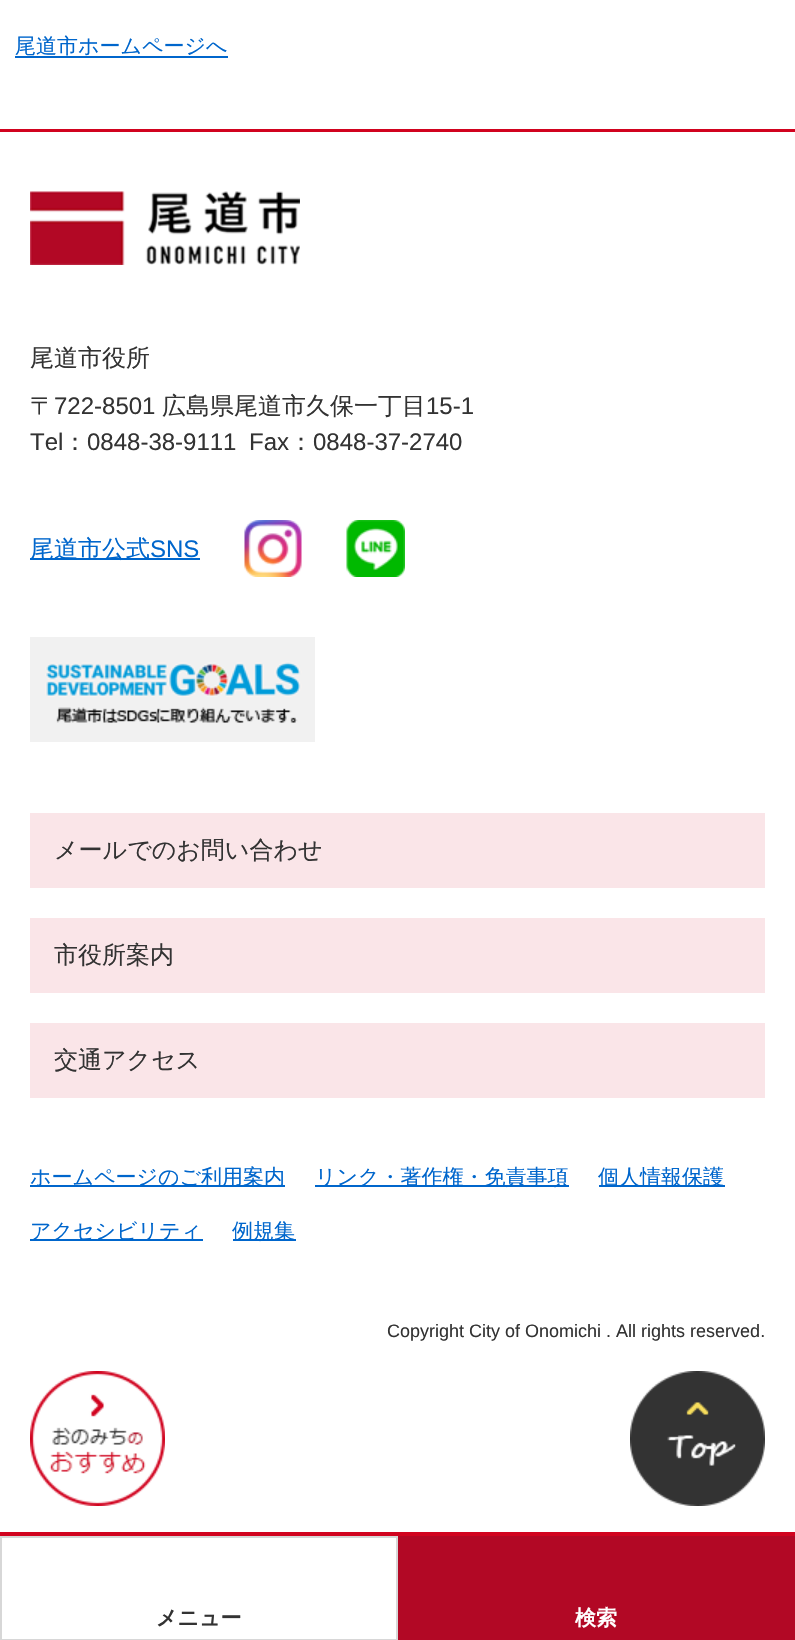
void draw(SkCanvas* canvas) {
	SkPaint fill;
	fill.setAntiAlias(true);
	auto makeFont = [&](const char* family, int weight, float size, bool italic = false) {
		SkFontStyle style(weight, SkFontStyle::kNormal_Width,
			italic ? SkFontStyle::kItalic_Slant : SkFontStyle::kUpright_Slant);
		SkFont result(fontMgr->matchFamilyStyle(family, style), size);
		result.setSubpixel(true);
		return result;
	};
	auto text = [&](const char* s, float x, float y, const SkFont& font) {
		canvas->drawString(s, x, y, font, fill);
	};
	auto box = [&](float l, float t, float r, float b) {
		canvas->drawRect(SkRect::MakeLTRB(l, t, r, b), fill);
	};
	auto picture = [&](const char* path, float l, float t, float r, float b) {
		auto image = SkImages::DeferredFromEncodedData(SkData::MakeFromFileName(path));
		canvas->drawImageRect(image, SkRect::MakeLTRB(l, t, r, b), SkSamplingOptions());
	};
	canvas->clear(0xFFFFFFFF);
	fill.setColor(0xFF0066CC);
	box(15, 56, 228, 58);
	fill.setColor(0xFFD1031F);
	box(0, 129, 795, 132);
	box(0, 1532, 795, 1536);
	picture("image0.png", 30, 191, 300, 265);
	fill.setColor(0xFF0066CC);
	box(30, 558, 200, 560);
	picture("image1.png", 244, 520, 302, 577);
	picture("image2.png", 346, 520, 405, 577);
	picture("image3.png", 30, 637, 315, 742);
	fill.setColor(0xFFFAE5E8);
	box(30, 813, 765, 888);
	box(30, 918, 765, 993);
	box(30, 1023, 765, 1098);
	fill.setColor(0xFF0066CC);
	box(30, 1185, 285, 1187);
	box(315, 1185, 569, 1187);
	box(599, 1185, 725, 1187);
	box(30, 1239, 203, 1241);
	box(233, 1239, 296, 1241);
	picture("image4.png", 30, 1371, 165, 1506);
	picture("image5.png", 630, 1371, 765, 1506);
	fill.setStyle(SkPaint::kStroke_Style);
	fill.setStrokeWidth(2);
	fill.setColor(0xFFD7D7D7);
	canvas->drawRect(SkRect::MakeLTRB(1, 1537, 397, 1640), fill);
	fill.setStyle(SkPaint::kFill_Style);
	fill.setColor(0xFFB20825);
	box(398, 1536, 795, 1640);
	auto font1 = makeFont("WenQuanYi Zen Hei", 500, 21);
	fill.setColor(0xFF0066CC);
	text("尾道市ホームページへ", 15, 53, font1);
	auto font2 = makeFont("WenQuanYi Zen Hei", 500, 24);
	fill.setColor(0xFF333333);
	text("尾道市役所", 30, 366, font2);
	text("〒", 30, 414, font2);
	auto font3 = makeFont("Liberation Sans", 400, 24);
	text("722-8501", 54, 414, font3);
	text("広島県尾道市久保一丁目", 162, 414, font2);
	text("15-1", 426, 414, font3);
	text("Tel", 30, 450, font3);
	text("：", 63, 450, font2);
	text("0848-38-9111", 87, 450, font3);
	text("Fax", 249, 450, font3);
	text("：", 289, 450, font2);
	text("0848-37-2740", 313, 450, font3);
	fill.setColor(0xFF0066CC);
	text("尾道市公式", 30, 557, font2);
	text("SNS", 150, 557, font3);
	fill.setColor(0xFF333333);
	text("メールでのお問い合わせ", 54, 858, font2);
	text("市役所案内", 54, 963, font2);
	text("交通アクセス", 54, 1068, font2);
	fill.setColor(0xFF0066CC);
	text("ホームページのご利用案内", 30, 1184, font1);
	text("リンク・著作権・免責事項", 315, 1184, font1);
	text("個人情報保護", 598, 1184, font1);
	text("アクセシビリティ", 30, 1238, font1);
	text("例規集", 232, 1238, font1);
	auto font4 = makeFont("Liberation Sans", 400, 18);
	fill.setColor(0xFF333333);
	text("Copyright City of Onomichi . All rights reserved.", 387, 1337, font4);
	auto font5 = makeFont("WenQuanYi Zen Hei", 700, 21);
	text("メニュー", 156, 1625, font5);
	fill.setColor(0xFFFFFFFF);
	text("検索", 575, 1625, font5);
}
